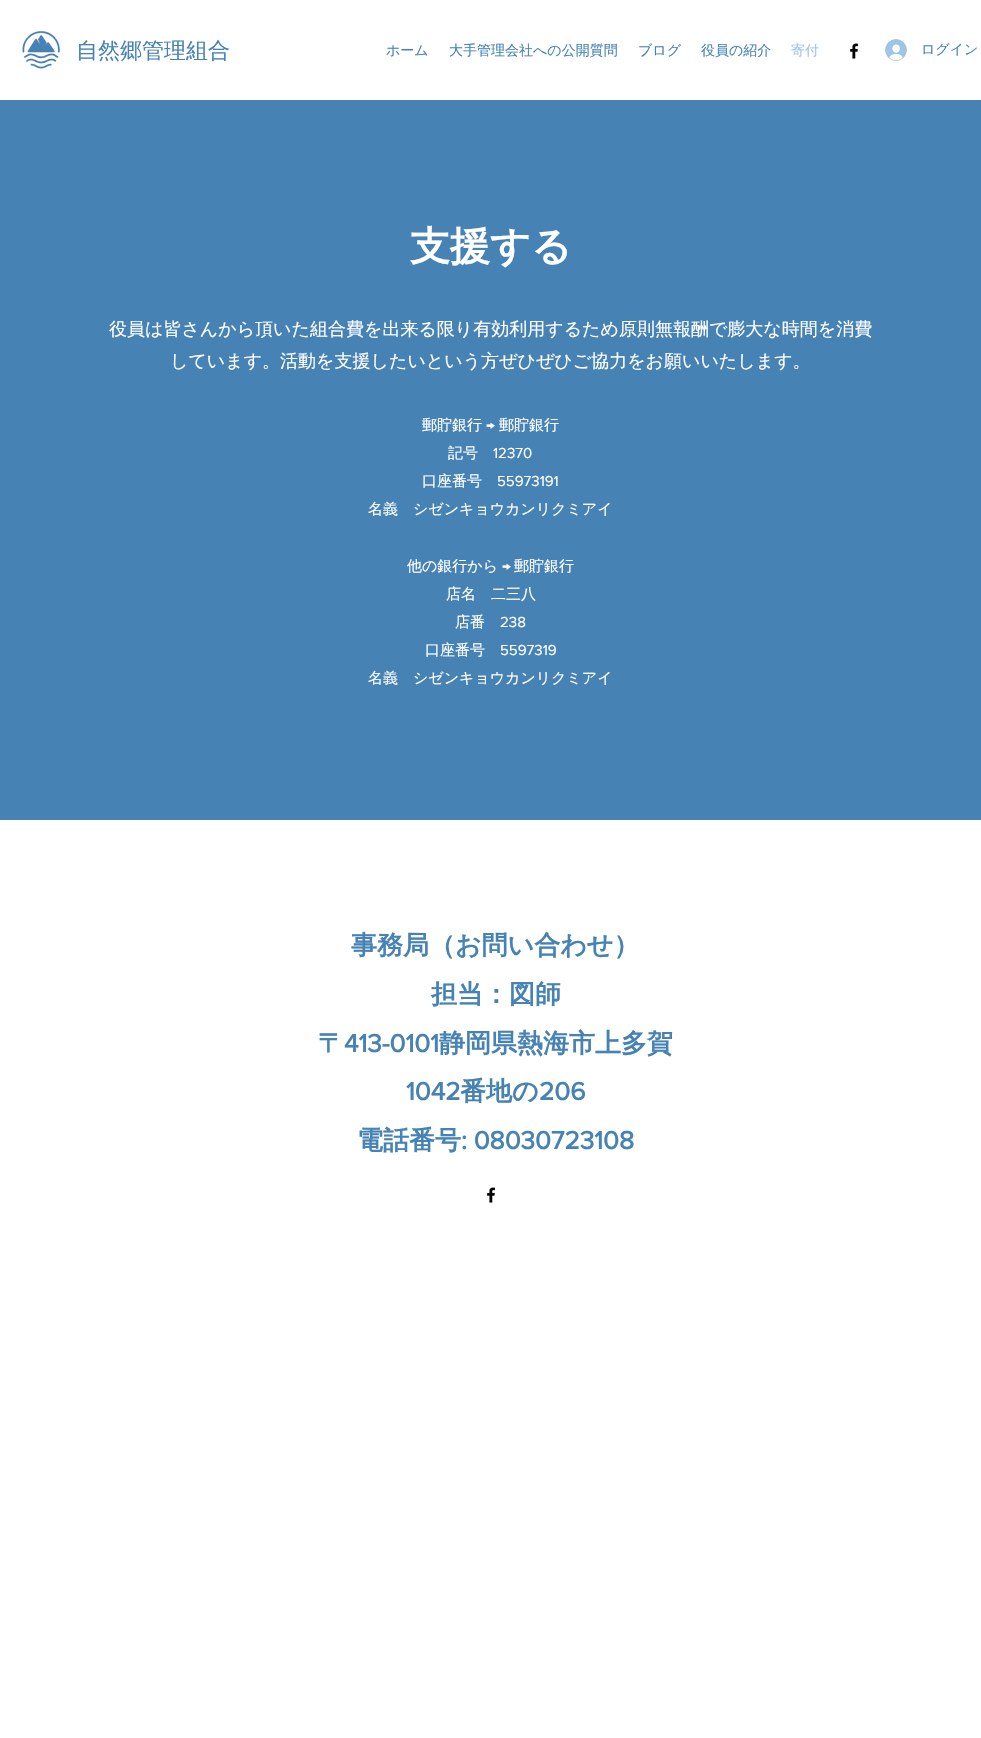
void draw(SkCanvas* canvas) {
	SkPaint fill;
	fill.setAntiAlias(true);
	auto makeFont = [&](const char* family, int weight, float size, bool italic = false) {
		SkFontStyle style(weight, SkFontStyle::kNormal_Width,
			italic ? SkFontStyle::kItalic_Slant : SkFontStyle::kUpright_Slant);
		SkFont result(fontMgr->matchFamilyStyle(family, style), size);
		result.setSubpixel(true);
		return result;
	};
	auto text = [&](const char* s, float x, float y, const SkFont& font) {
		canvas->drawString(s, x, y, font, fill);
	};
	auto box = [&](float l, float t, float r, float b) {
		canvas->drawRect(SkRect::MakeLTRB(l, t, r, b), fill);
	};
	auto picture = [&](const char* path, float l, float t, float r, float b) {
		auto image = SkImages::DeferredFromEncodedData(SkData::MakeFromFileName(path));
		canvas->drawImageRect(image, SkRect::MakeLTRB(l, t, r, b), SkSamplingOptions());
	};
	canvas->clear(0xFFFFFFFF);
	picture("image0.png", 22, 31, 60, 69);
	picture("image1.png", 850, 43, 859, 59);
	picture("image2.png", 885, 39, 907, 61);
	fill.setColor(0xFF4682B4);
	box(0, 100, 981, 820);
	picture("image1.png", 487, 1187, 496, 1203);
	auto font1 = makeFont("WenQuanYi Zen Hei", 500, 22);
	text("自然郷管理組合", 76, 58, font1);
	auto font2 = makeFont("WenQuanYi Zen Hei", 500, 14);
	text("ホーム", 386, 55, font2);
	text("大手管理会社への公開質問", 449, 55, font2);
	text("ブログ", 638, 55, font2);
	text("役員の紹介", 701, 55, font2);
	fill.setColor(0xFF9EC5E6);
	text("寄付", 791, 55, font2);
	fill.setColor(0xFF4682B4);
	text("ログイン", 921, 54, font2);
	auto font3 = makeFont("WenQuanYi Zen Hei", 700, 40);
	fill.setColor(0xFFFFFFFF);
	text("支援する", 410, 260, font3);
	auto font4 = makeFont("WenQuanYi Zen Hei", 500, 18);
	text("役員は皆さんから頂いた組合費を出来る限り有効利用するため原則無報酬で膨大な時間を消費", 109, 335, font4);
	text("しています。活動を支援したいという方ぜひぜひご協力をお願いいたします。", 170, 367, font4);
	auto font5 = makeFont("WenQuanYi Zen Hei", 500, 15);
	text("郵貯銀行", 422, 430, font5);
	auto font6 = makeFont("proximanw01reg", 400, 15);
	text("→", 486, 430, font6);
	text("郵貯銀行", 499, 430, font5);
	text("記号", 448, 458, font5);
	text("12370", 493, 458, font6);
	text("口座番号", 422, 486, font5);
	text("55973191", 497, 486, font6);
	text("名義　シゼンキョウカンリクミアイ", 368, 514, font5);
	text("他の銀行から", 407, 571, font5);
	text("→", 502, 571, font6);
	text("郵貯銀行", 514, 571, font5);
	text("店名　二三八", 446, 599, font5);
	text("店番", 455, 627, font5);
	text("238", 500, 627, font6);
	text("口座番号", 425, 655, font5);
	text("5597319", 500, 655, font6);
	text("名義　シゼンキョウカンリクミアイ", 368, 683, font5);
	auto font7 = makeFont("WenQuanYi Zen Hei", 700, 26);
	fill.setColor(0xFF4682B4);
	text("事務局（お問い合わせ）", 351, 954, font7);
	text("担当：図師", 431, 1003, font7);
	text("〒", 318, 1052, font7);
	auto font8 = makeFont("proximanw01reg", 700, 26);
	text("413-0101", 344, 1052, font8);
	text("静岡県熱海市上多賀", 439, 1052, font7);
	text("1042", 406, 1100, font8);
	text("番地の", 460, 1100, font7);
	text("206", 539, 1100, font8);
	text("電話番号", 357, 1149, font7);
	text(": 08030723108", 461, 1149, font8);
}
